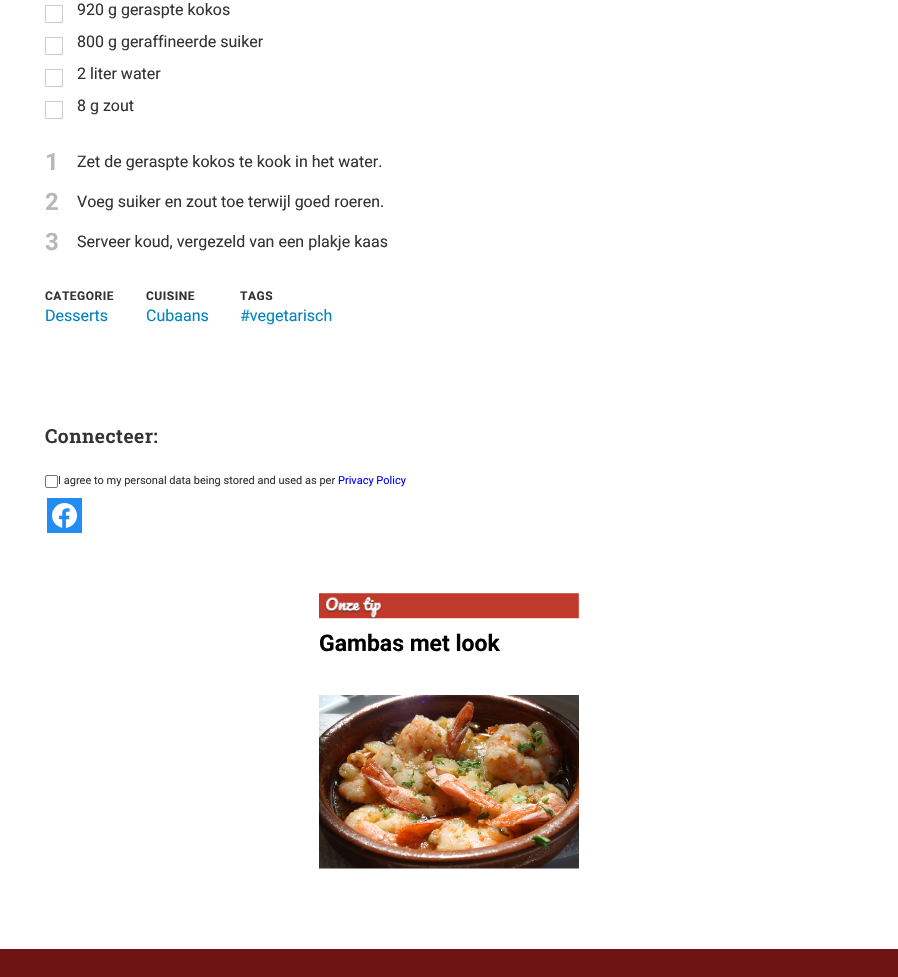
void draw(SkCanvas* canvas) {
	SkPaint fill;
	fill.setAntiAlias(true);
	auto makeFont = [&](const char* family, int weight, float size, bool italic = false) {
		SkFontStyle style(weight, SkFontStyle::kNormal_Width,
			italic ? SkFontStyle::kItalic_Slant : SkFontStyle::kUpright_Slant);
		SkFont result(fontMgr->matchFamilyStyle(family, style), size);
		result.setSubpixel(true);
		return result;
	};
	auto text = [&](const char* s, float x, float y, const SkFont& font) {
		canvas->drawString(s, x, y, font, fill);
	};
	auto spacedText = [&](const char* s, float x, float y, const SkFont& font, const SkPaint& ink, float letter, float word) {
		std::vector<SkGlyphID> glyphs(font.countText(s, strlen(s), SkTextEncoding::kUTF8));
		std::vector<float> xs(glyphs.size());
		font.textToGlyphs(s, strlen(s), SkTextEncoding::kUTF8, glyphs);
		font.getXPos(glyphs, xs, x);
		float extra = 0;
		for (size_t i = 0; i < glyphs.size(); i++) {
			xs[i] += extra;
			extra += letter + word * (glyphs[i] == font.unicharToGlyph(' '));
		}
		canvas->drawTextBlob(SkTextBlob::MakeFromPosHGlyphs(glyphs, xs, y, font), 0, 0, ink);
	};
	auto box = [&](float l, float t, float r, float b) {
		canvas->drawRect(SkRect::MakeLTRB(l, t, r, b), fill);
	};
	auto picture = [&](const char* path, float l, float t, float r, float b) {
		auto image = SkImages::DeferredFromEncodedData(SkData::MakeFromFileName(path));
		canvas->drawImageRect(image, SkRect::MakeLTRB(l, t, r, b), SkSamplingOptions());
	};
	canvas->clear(0xFFFFFFFF);
	fill.setStyle(SkPaint::kStroke_Style);
	fill.setStrokeWidth(1);
	fill.setColor(0xFFCCCCCC);
	canvas->drawRect(SkRect::MakeLTRB(45.5f, 5.5f, 62.5f, 22.5f), fill);
	canvas->drawRect(SkRect::MakeLTRB(45.5f, 37.5f, 62.5f, 54.5f), fill);
	canvas->drawRect(SkRect::MakeLTRB(45.5f, 69.5f, 62.5f, 86.5f), fill);
	canvas->drawRect(SkRect::MakeLTRB(45.5f, 101.5f, 62.5f, 118.5f), fill);
	fill.setColor(0xFF767676);
	canvas->drawRoundRect(SkRect::MakeLTRB(45.5f, 475.5f, 57.5f, 487.5f), 1.5f, 1.5f, fill);
	fill.setStyle(SkPaint::kFill_Style);
	fill.setColor(0xFF218CF2);
	box(47, 498, 82, 533);
	fill.setColor(0xFFFFFFFF);
	canvas->drawCircle(64.5f, 515.5f, 12.5f, fill);
	picture("image0.png", 59, 508, 70, 528);
	picture("image1.png", 319, 593, 579, 619);
	picture("image2.png", 319, 695, 579, 869);
	fill.setColor(0xFF6F1414);
	box(0, 949, 898, 977);
	auto font1 = makeFont("Roboto", 400, 16);
	fill.setColor(0xFF333333);
	text("920 g geraspte kokos", 77, 15, font1);
	text("800 g geraffineerde suiker", 77, 47, font1);
	text("2 liter water", 77, 79, font1);
	text("8 g zout", 77, 111, font1);
	auto font2 = makeFont("Roboto", 700, 24);
	fill.setColor(0xFFB8B8B8);
	text("1", 45, 170, font2);
	fill.setColor(0xFF333333);
	text("Zet de geraspte kokos te kook in het water.", 77, 167, font1);
	fill.setColor(0xFFB8B8B8);
	text("2", 45, 210, font2);
	fill.setColor(0xFF333333);
	text("Voeg suiker en zout toe terwijl goed roeren.", 77, 207, font1);
	fill.setColor(0xFFB8B8B8);
	text("3", 45, 250, font2);
	fill.setColor(0xFF333333);
	text("Serveer koud, vergezeld van een plakje kaas", 77, 247, font1);
	auto font3 = makeFont("Roboto", 700, 12);
	spacedText("CATEGORIE", 45, 300, font3, fill, 0.5f, 0);
	fill.setColor(0xFF0083BE);
	text("Desserts", 45, 321, font1);
	fill.setColor(0xFF333333);
	spacedText("CUISINE", 146, 300, font3, fill, 0.5f, 0);
	fill.setColor(0xFF0083BE);
	text("Cubaans", 146, 321, font1);
	fill.setColor(0xFF333333);
	spacedText("TAGS", 240, 300, font3, fill, 0.5f, 0);
	fill.setColor(0xFF0083BE);
	text("#vegetarisch", 240, 321, font1);
	auto font4 = makeFont("Roboto Slab", 600, 19.25f);
	fill.setColor(0xFF333333);
	spacedText("Connecteer:", 45, 443, font4, fill, 0.5f, 0);
	auto font5 = makeFont("Roboto", 400, 11);
	text("I agree to my personal data being stored and used as per", 58, 484, font5);
	fill.setColor(0xFF0000FF);
	text("Privacy Policy", 338, 484, font5);
	auto font6 = makeFont("Roboto", 700, 23);
	fill.setColor(0xFF000000);
	text("Gambas met look", 319, 651, font6);
}
